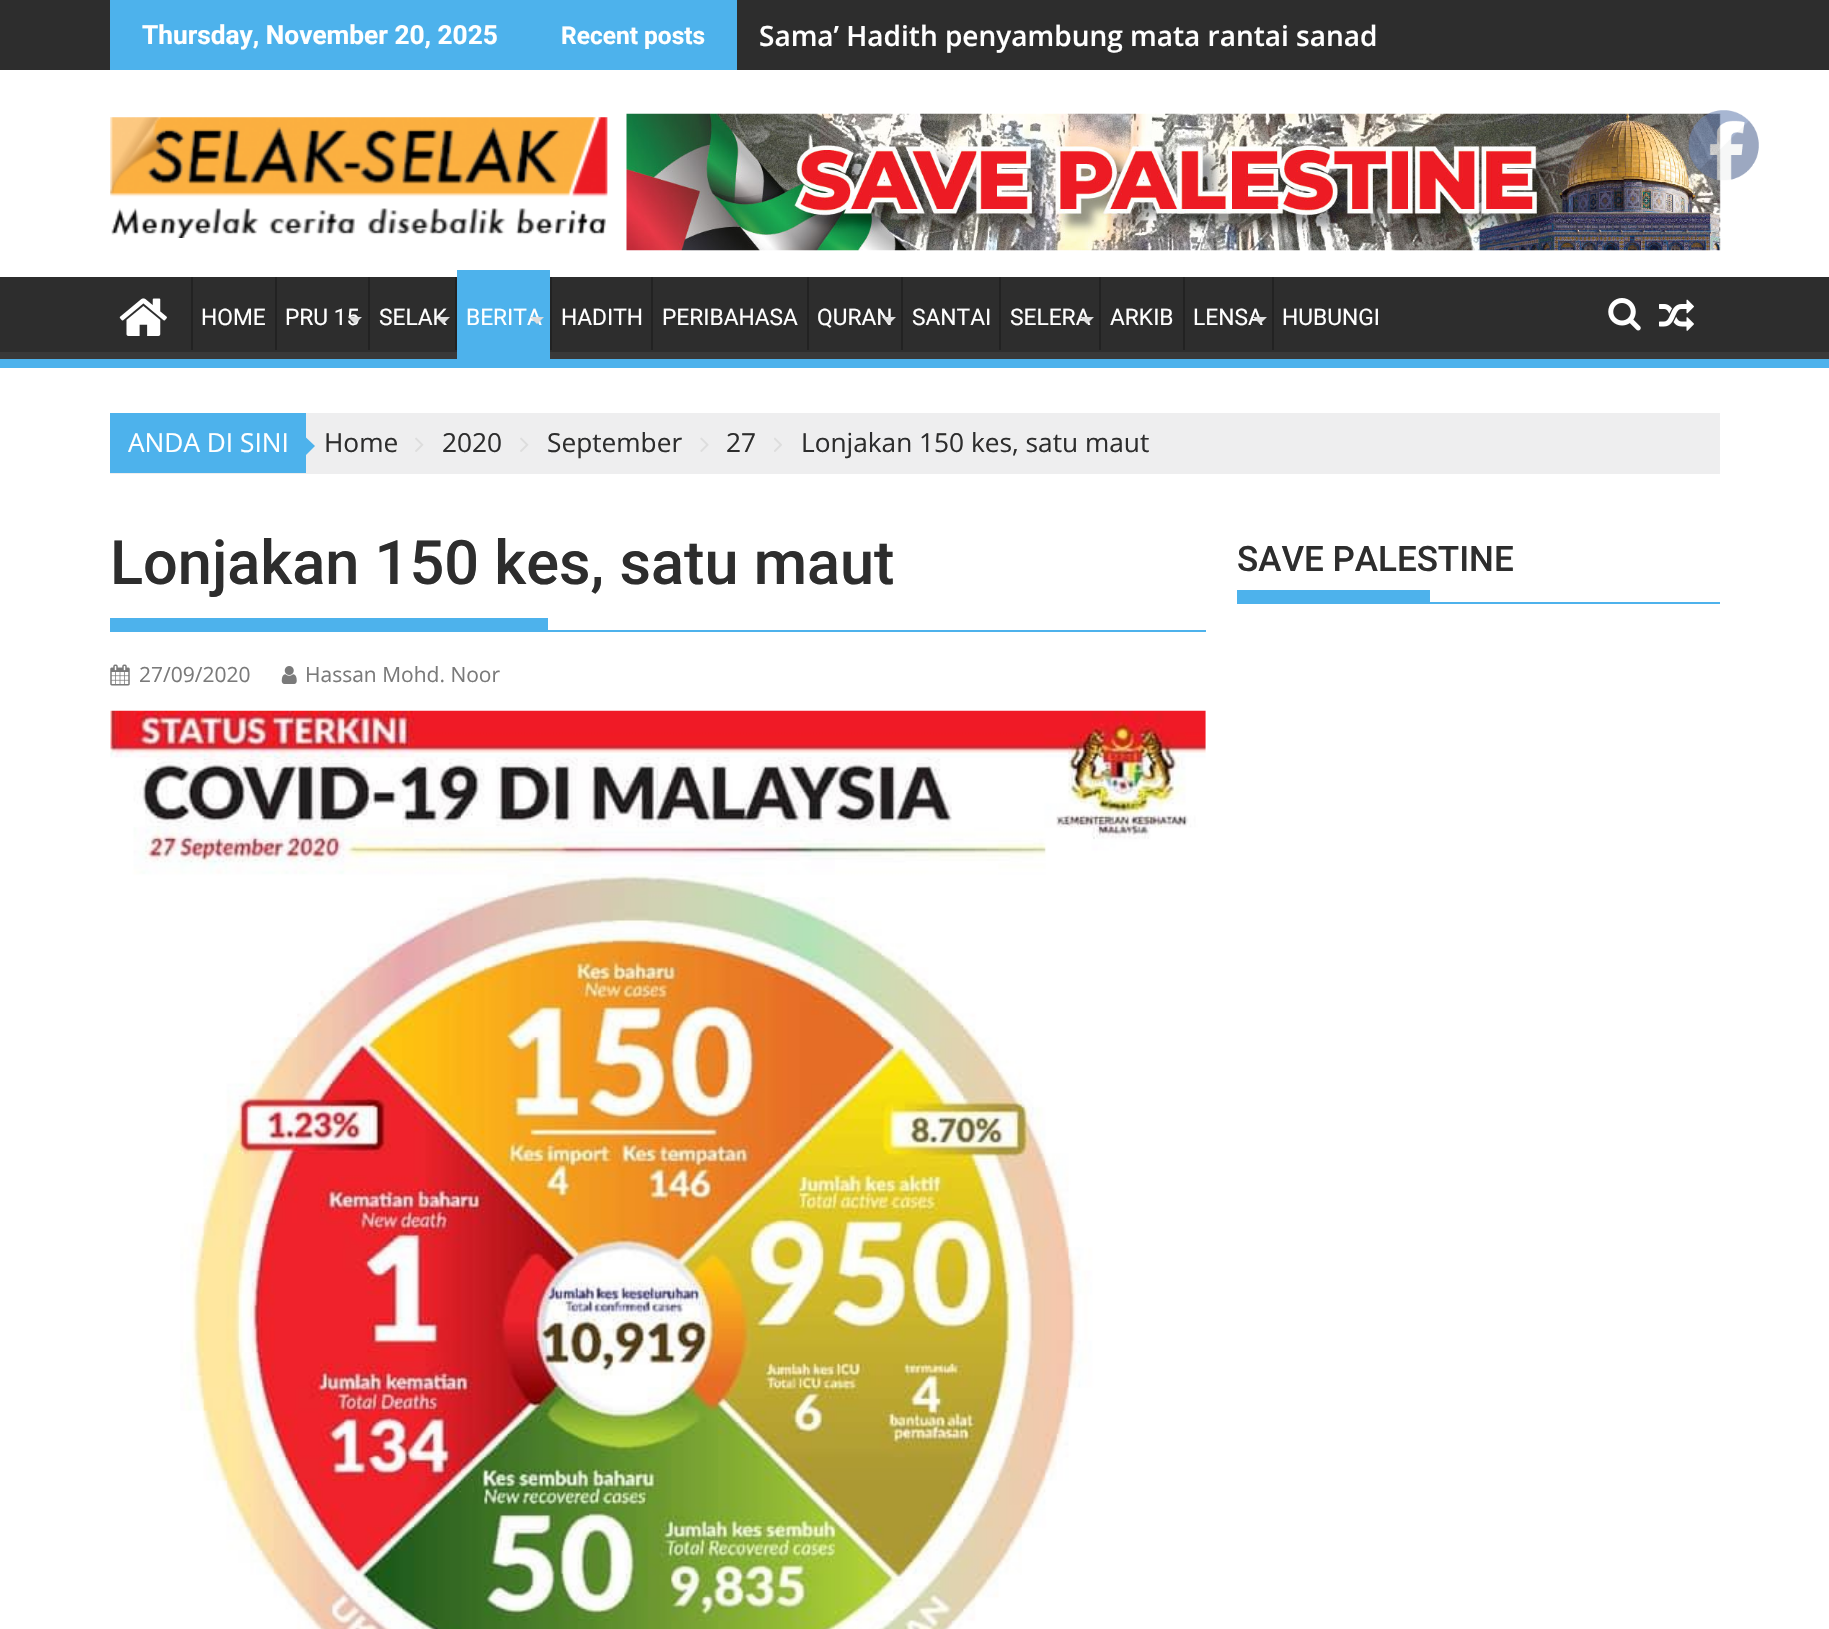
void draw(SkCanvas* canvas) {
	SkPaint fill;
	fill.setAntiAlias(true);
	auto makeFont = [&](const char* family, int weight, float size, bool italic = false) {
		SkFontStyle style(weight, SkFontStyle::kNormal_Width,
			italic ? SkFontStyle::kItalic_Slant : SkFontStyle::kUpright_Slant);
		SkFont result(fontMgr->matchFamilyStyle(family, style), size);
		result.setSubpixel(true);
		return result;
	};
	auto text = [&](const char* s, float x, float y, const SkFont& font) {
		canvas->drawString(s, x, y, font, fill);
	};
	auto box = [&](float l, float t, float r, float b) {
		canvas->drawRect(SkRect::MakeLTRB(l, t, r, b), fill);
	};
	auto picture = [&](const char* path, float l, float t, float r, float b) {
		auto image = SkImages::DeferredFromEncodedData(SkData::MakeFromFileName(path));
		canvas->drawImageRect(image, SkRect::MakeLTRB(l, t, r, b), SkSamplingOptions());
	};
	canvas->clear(0xFFFFFFFF);
	fill.setColor(0xFF2D2D2D);
	box(0, 0, 1829, 70);
	fill.setColor(0xFF4DB2EC);
	box(110, 0, 737, 70);
	picture("image0.png", 110, 117, 608, 238);
	picture("image1.png", 626, 113, 1721, 251);
	fill.setColor(0xFF2D2D2D);
	box(0, 277, 1829, 352);
	canvas->save();
	canvas->clipRect(SkRect::MakeLTRB(0, 277, 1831, 359));
	fill.setColor(0xFF393939);
	canvas->drawPath(SkPathBuilder(SkPathFillType::kEvenOdd).moveTo(-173, 103).lineTo(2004, 103).lineTo(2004, 532).lineTo(-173, 532).close().moveTo(-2, 266).lineTo(1829, 266).cubicTo(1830, 266, 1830, 267, 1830, 268).lineTo(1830, 350).cubicTo(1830, 351, 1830, 352, 1829, 352).lineTo(-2, 352).cubicTo(-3, 352, -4, 351, -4, 350).lineTo(-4, 268).cubicTo(-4, 267, -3, 266, -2, 266).close().detach(), fill);
	canvas->restore();
	fill.setColor(0xFF4DB2EC);
	box(0, 359, 1829, 368);
	picture("image2.png", 119, 298, 167, 336);
	fill.setColor(0xFF222222);
	box(191, 277, 193, 350);
	box(275, 277, 277, 350);
	box(368, 277, 370, 350);
	box(455, 277, 457, 350);
	fill.setColor(0xFF4DB2EC);
	box(457, 270, 550, 359);
	fill.setColor(0xFF222222);
	box(550, 277, 552, 350);
	box(651, 277, 653, 350);
	box(807, 277, 809, 350);
	box(901, 277, 903, 350);
	box(999, 277, 1001, 350);
	box(1099, 277, 1101, 350);
	box(1183, 277, 1185, 350);
	box(1272, 277, 1274, 350);
	picture("image3.png", 1608, 298, 1641, 331);
	picture("image4.png", 1659, 299, 1694, 331);
	fill.setColor(0xFFEEEEEF);
	box(110, 413, 1720, 474);
	fill.setColor(0xFF4DB2EC);
	box(110, 413, 306, 473);
	canvas->drawPath(SkPathBuilder().moveTo(306, 455).lineTo(306, 437.5f).lineTo(315, 446).close().detach(), fill);
	picture("image5.png", 415, 437, 424, 452);
	picture("image5.png", 520, 437, 529, 452);
	picture("image6.png", 700, 437, 709, 452);
	picture("image7.png", 774, 437, 782, 452);
	box(110, 630, 1206, 632);
	box(110, 618, 548, 630);
	picture("image8.png", 110, 664, 130, 686);
	picture("image9.png", 281, 666, 297, 684);
	picture("image10.png", 110, 710, 1206, 1629);
	box(1237, 602, 1720, 604);
	box(1237, 590, 1430, 602);
	picture("image11.png", 1688, 110, 1759, 181);
	auto font1 = makeFont("Roboto", 700, 26.25f);
	fill.setColor(0xFFFFFFFF);
	text("Thursday, November 20, 2025", 142, 44, font1);
	auto font2 = makeFont("Roboto", 700, 24.5f);
	text("Recent posts", 561, 44, font2);
	auto font3 = makeFont("Open Sans", 600, 28);
	text("Sama’ Hadith penyambung mata rantai sanad", 759, 46, font3);
	auto font4 = makeFont("Roboto", 400, 22.75f);
	text("HOME", 201, 325, font4);
	text("PRU 15", 285, 325, font4);
	fill.setColor(0xFFDDDDDD);
	canvas->drawPath(SkPathBuilder().moveTo(348, 317).lineTo(362, 317).lineTo(355, 324).close().detach(), fill);
	fill.setColor(0xFFFFFFFF);
	text("SELAK", 379, 325, font4);
	fill.setColor(0xFFDDDDDD);
	canvas->drawPath(SkPathBuilder().moveTo(436, 317).lineTo(450, 317).lineTo(443, 324).close().detach(), fill);
	fill.setColor(0xFFFFFFFF);
	text("BERITA", 466, 325, font4);
	fill.setColor(0xFFDDDDDD);
	canvas->drawPath(SkPathBuilder().moveTo(530, 317).lineTo(544, 317).lineTo(537, 324).close().detach(), fill);
	fill.setColor(0xFFFFFFFF);
	text("HADITH", 561, 325, font4);
	text("PERIBAHASA", 662, 325, font4);
	text("QURAN", 817, 325, font4);
	fill.setColor(0xFFDDDDDD);
	canvas->drawPath(SkPathBuilder().moveTo(882, 317).lineTo(896, 317).lineTo(889, 324).close().detach(), fill);
	fill.setColor(0xFFFFFFFF);
	text("SANTAI", 912, 325, font4);
	text("SELERA", 1010, 325, font4);
	fill.setColor(0xFFDDDDDD);
	canvas->drawPath(SkPathBuilder().moveTo(1080, 317).lineTo(1094, 317).lineTo(1087, 324).close().detach(), fill);
	fill.setColor(0xFFFFFFFF);
	text("ARKIB", 1110, 325, font4);
	text("LENSA", 1193, 325, font4);
	fill.setColor(0xFFDDDDDD);
	canvas->drawPath(SkPathBuilder().moveTo(1253, 317).lineTo(1267, 317).lineTo(1260, 324).close().detach(), fill);
	fill.setColor(0xFFFFFFFF);
	text("HUBUNGI", 1282, 325, font4);
	auto font5 = makeFont("Open Sans", 400, 26.25f);
	text("ANDA DI SINI", 128, 452, font5);
	fill.setColor(0xFF2D2D2D);
	text("Home", 324, 452, font5);
	text("2020", 442, 452, font5);
	text("September", 547, 452, font5);
	text("27", 726, 452, font5);
	text("Lonjakan 150 kes, satu maut", 801, 452, font5);
	auto font6 = makeFont("Roboto", 500, 61.25f);
	text("Lonjakan 150 kes, satu maut", 110, 584, font6);
	auto font7 = makeFont("Open Sans", 400, 21);
	fill.setColor(0xFF7A7A7A);
	text("27/09/2020", 139, 682, font7);
	text("Hassan Mohd. Noor", 305, 682, font7);
	auto font8 = makeFont("Roboto", 500, 35);
	fill.setColor(0xFF2D2D2D);
	text("SAVE PALESTINE", 1237, 571, font8);
}
